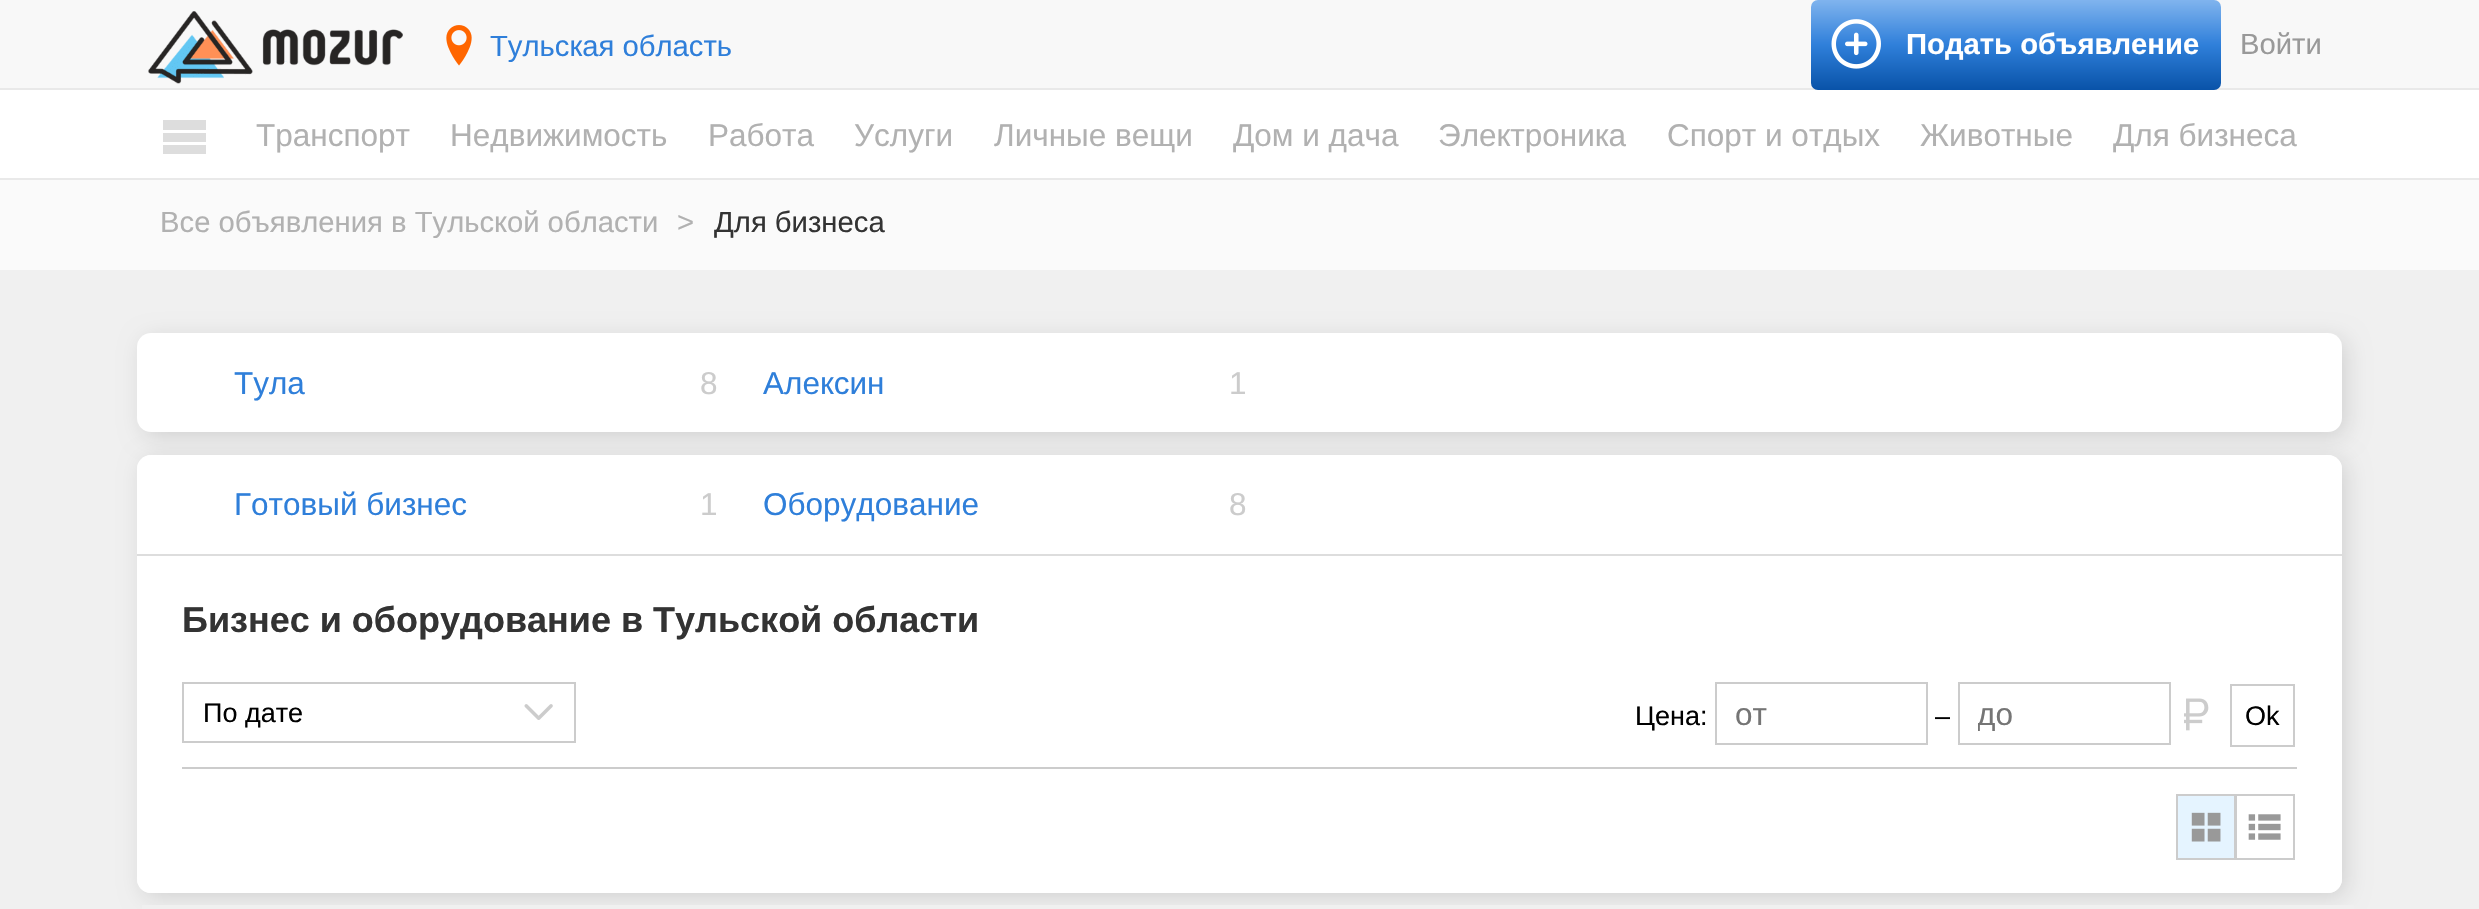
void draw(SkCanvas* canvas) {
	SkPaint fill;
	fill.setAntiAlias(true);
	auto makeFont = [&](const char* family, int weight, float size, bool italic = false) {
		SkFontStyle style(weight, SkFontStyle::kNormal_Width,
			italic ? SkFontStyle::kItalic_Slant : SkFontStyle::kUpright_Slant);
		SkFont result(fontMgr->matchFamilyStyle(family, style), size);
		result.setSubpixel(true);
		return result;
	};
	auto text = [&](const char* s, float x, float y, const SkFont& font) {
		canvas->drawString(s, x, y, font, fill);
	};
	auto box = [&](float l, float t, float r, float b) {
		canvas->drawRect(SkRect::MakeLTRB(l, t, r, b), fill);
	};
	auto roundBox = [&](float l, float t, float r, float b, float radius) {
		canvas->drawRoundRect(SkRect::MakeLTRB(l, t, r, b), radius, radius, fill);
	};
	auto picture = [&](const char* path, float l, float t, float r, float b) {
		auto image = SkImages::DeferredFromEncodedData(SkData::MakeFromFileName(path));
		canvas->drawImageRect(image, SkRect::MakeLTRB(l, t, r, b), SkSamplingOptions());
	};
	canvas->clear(0xFFF0F0F0);
	fill.setColor(0xFFF8F8F8);
	box(0, 0, 2479, 88);
	fill.setColor(0xFFE9E9E9);
	box(0, 88, 2479, 90);
	picture("image0.png", 148, 11, 403, 84);
	picture("image1.png", 446, 25, 472, 66);
	{
		const SkColor colors[] = {0xFF80B4EE, 0xFF2F7FDA, 0xFF0953A8};
		const float stops[] = {0, 0.5f, 1};
		const SkPoint ends[] = {{2016, 0}, {2016, 90}};
		fill.setShader(SkGradientShader::MakeLinear(ends, colors, stops, 3, SkTileMode::kClamp));
		fill.setAlpha(255);
	}
	roundBox(1811, 0, 2221, 90, 7);
	picture("image2.png", 1831, 19, 1881, 69);
	fill.setShader(nullptr);
	fill.setColor(0xFFFFFFFF);
	box(0, 90, 2479, 178);
	fill.setColor(0xFFE9E9E9);
	box(0, 178, 2479, 180);
	fill.setColor(0xFFDDDDDD);
	canvas->drawPath(SkPathBuilder().moveTo(163, 120).lineTo(206, 120).lineTo(206, 130).lineTo(163, 130).close().moveTo(163, 133).lineTo(206, 133).lineTo(206, 142).lineTo(163, 142).close().moveTo(163, 145).lineTo(206, 145).lineTo(206, 154).lineTo(163, 154).close().detach(), fill);
	fill.setColor(0xFFFAFAFA);
	box(0, 180, 2479, 270);
	fill.setColor(0x1F000000);
	fill.setMaskFilter(SkMaskFilter::MakeBlur(kNormal_SkBlurStyle, 11));
	canvas->drawRoundRect(SkRect::MakeLTRB(142, 459, 2347, 898), 14, 14, fill);
	fill.setMaskFilter(nullptr);
	fill.setColor(0xFFFFFFFF);
	roundBox(137, 455, 2342, 893, 14);
	fill.setColor(0x1F000000);
	fill.setMaskFilter(SkMaskFilter::MakeBlur(kNormal_SkBlurStyle, 11));
	canvas->drawRoundRect(SkRect::MakeLTRB(142, 338, 2347, 437), 14, 14, fill);
	fill.setMaskFilter(nullptr);
	fill.setColor(0xFFFFFFFF);
	roundBox(137, 333, 2342, 432, 14);
	canvas->drawPath(SkPathBuilder().moveTo(151, 455).lineTo(2328, 455).cubicTo(2335.5f, 455, 2342, 461.5f, 2342, 469).lineTo(2342, 556).lineTo(137, 556).lineTo(137, 469).cubicTo(137, 461.5f, 143.5f, 455, 151, 455).close().detach(), fill);
	fill.setColor(0xFFDDDDDD);
	box(137, 554, 2342, 556);
	fill.setColor(0xFFFFFFFF);
	roundBox(137, 682, 2342, 893, 14);
	fill.setColor(0xFFCCCCCC);
	box(182, 767, 2297, 769);
	fill.setStyle(SkPaint::kStroke_Style);
	fill.setStrokeWidth(2);
	canvas->drawRect(SkRect::MakeLTRB(183, 683, 575, 742), fill);
	picture("image3.png", 524, 704, 553, 720);
	canvas->drawRect(SkRect::MakeLTRB(1716, 683, 1927, 744), fill);
	canvas->drawRect(SkRect::MakeLTRB(1959, 683, 2170, 744), fill);
	picture("image4.png", 2184, 698, 2209, 731);
	canvas->drawRect(SkRect::MakeLTRB(2231, 685, 2294, 746), fill);
	fill.setStyle(SkPaint::kFill_Style);
	fill.setColor(0xFFE5F4FF);
	box(2178, 796, 2234, 858);
	fill.setStyle(SkPaint::kStroke_Style);
	fill.setColor(0xFFCCCCCC);
	canvas->drawRect(SkRect::MakeLTRB(2177, 795, 2236, 859), fill);
	picture("image5.png", 2191, 812, 2221, 842);
	canvas->drawRect(SkRect::MakeLTRB(2235, 795, 2294, 859), fill);
	picture("image6.png", 2248, 814, 2281, 840);
	fill.setStyle(SkPaint::kFill_Style);
	fill.setColor(0xFFF0F0F0);
	box(142, 905, 2354, 909);
	auto font1 = makeFont("Liberation Sans", 400, 29.25f);
	fill.setColor(0xFF2F7FDA);
	text("Тульская область", 490, 56, font1);
	auto font2 = makeFont("Liberation Sans", 700, 29.25f);
	fill.setColor(0xFFFFFFFF);
	text("Подать объявление", 1906, 54, font2);
	fill.setColor(0xFF999999);
	text("Войти", 2240, 54, font1);
	auto font3 = makeFont("Liberation Sans", 400, 31.5f);
	fill.setColor(0xFFB1B1B1);
	text("Транспорт", 256, 146, font3);
	text("Недвижимость", 450, 146, font3);
	text("Работа", 708, 146, font3);
	text("Услуги", 854, 146, font3);
	text("Личные вещи", 994, 146, font3);
	text("Дом и дача", 1233, 146, font3);
	text("Электроника", 1438, 146, font3);
	text("Спорт и отдых", 1667, 146, font3);
	text("Животные", 1920, 146, font3);
	text("Для бизнеса", 2113, 146, font3);
	text("Все объявления в Тульской области", 160, 232, font1);
	text(">", 677, 232, font1);
	fill.setColor(0xFF333333);
	text("Для бизнеса", 714, 232, font1);
	fill.setColor(0xFF2F7FDA);
	text("Тула", 234, 394, font3);
	fill.setColor(0xFFCCCCCC);
	text("8", 700, 394, font3);
	fill.setColor(0xFF2F7FDA);
	text("Алексин", 763, 394, font3);
	fill.setColor(0xFFCCCCCC);
	text("1", 1229, 394, font3);
	fill.setColor(0xFF2F7FDA);
	text("Готовый бизнес", 234, 515, font3);
	fill.setColor(0xFFCCCCCC);
	text("1", 700, 515, font3);
	fill.setColor(0xFF2F7FDA);
	text("Оборудование", 763, 515, font3);
	fill.setColor(0xFFCCCCCC);
	text("8", 1229, 515, font3);
	auto font4 = makeFont("Liberation Sans", 700, 36);
	fill.setColor(0xFF333333);
	text("Бизнес и оборудование в Тульской области", 182, 632, font4);
	auto font5 = makeFont("Liberation Sans", 400, 27);
	fill.setColor(0xFF000000);
	text("По дате", 203, 722, font5);
	text("Цена:", 1635, 725, font5);
	fill.setColor(0xFF757575);
	text("от", 1735, 725, font3);
	fill.setColor(0xFF000000);
	text("–", 1935, 725, font5);
	canvas->save();
	canvas->clipRect(SkRect::MakeLTRB(1978, 695, 2151, 731));
	fill.setColor(0xFF757575);
	text("до", 1977, 725, font3);
	canvas->restore();
	fill.setColor(0xFF000000);
	text("Ok", 2245, 725, font5);
}
